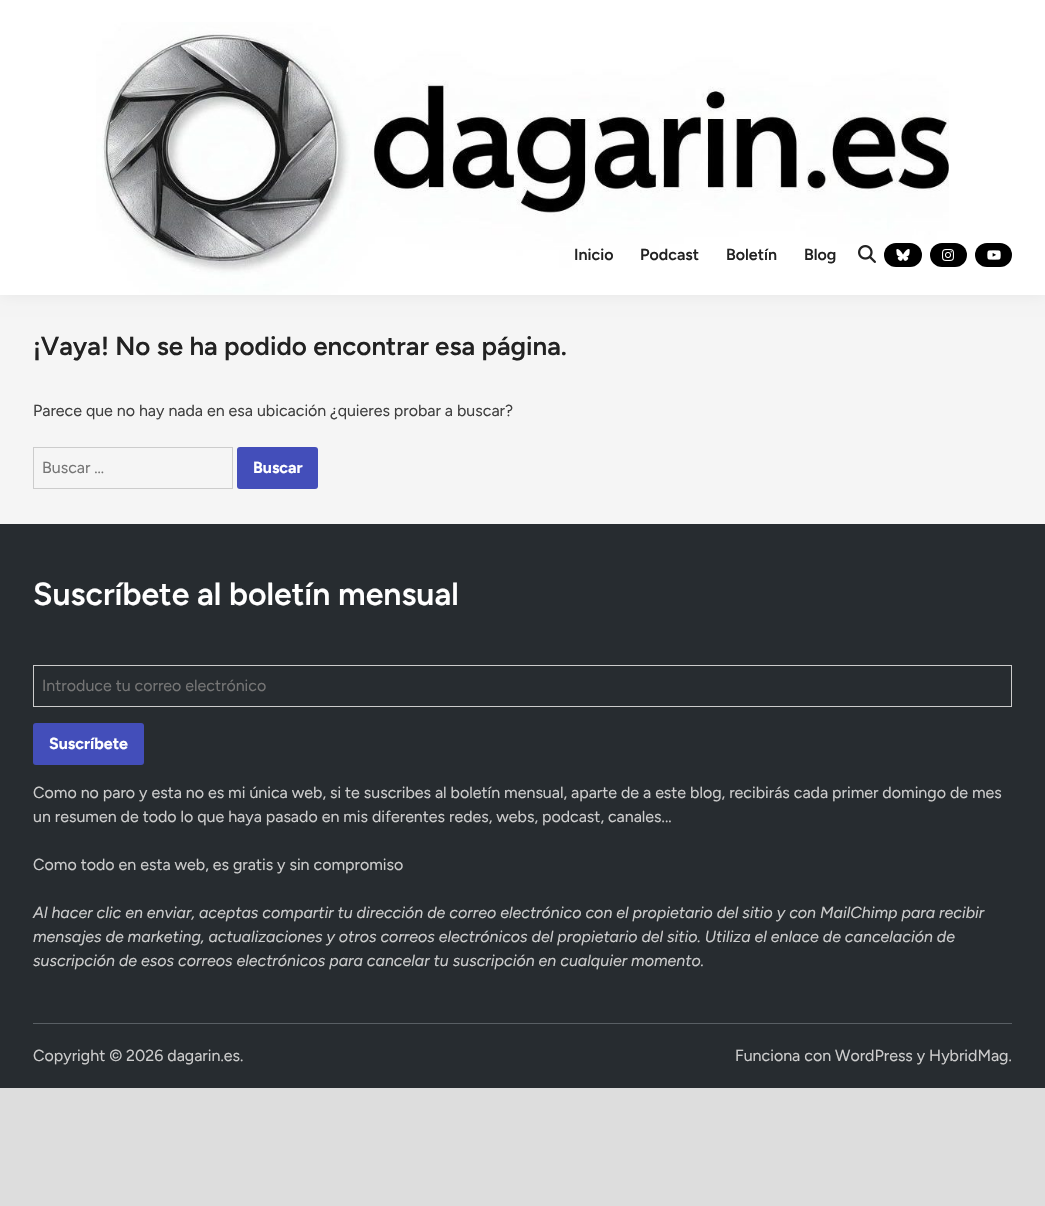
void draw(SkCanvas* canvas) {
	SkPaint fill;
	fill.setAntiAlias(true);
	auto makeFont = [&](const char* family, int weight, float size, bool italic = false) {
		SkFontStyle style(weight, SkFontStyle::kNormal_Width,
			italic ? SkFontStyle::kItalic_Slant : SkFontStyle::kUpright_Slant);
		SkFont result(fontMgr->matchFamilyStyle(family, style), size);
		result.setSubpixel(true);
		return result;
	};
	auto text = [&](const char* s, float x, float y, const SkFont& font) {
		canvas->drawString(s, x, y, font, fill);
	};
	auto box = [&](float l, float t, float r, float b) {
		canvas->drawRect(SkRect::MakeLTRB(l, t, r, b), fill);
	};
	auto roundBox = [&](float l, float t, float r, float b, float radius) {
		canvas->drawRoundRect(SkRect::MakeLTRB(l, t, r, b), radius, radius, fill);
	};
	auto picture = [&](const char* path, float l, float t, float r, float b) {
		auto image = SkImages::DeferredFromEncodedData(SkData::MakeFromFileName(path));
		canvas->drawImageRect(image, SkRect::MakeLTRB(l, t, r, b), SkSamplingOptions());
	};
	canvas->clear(0xFFDDDDDD);
	fill.setColor(0xFFF5F5F5);
	box(0, 295, 1045, 524);
	fill.setColor(0x0F000000);
	fill.setMaskFilter(SkMaskFilter::MakeBlur(kNormal_SkBlurStyle, 7.5f));
	canvas->drawRect(SkRect::MakeLTRB(0, 0, 1045, 295), fill);
	fill.setMaskFilter(nullptr);
	fill.setColor(0xFFFFFFFF);
	box(0, 0, 1045, 295);
	picture("image0.png", 96, 22, 949, 295);
	picture("image1.png", 858, 245, 876, 263);
	fill.setColor(0xFF000000);
	roundBox(884, 243, 922, 267, 12);
	picture("image2.png", 896, 249, 910, 261);
	roundBox(930, 243, 967, 267, 12);
	picture("image3.png", 942, 249, 954, 261);
	roundBox(975, 243, 1012, 267, 12);
	picture("image4.png", 987, 250, 1001, 260);
	fill.setStyle(SkPaint::kStroke_Style);
	fill.setStrokeWidth(1);
	fill.setColor(0xFFCCCCCC);
	canvas->drawRect(SkRect::MakeLTRB(33.5f, 447.5f, 232.5f, 488.5f), fill);
	fill.setStyle(SkPaint::kFill_Style);
	fill.setColor(0xFF434EBA);
	roundBox(237, 447, 318, 489, 3);
	fill.setColor(0xFF272C30);
	box(0, 524, 1045, 1088);
	fill.setStyle(SkPaint::kStroke_Style);
	fill.setColor(0xFFCCCCCC);
	canvas->drawRect(SkRect::MakeLTRB(33.5f, 665.5f, 1011.5f, 706.5f), fill);
	fill.setStyle(SkPaint::kFill_Style);
	fill.setColor(0xFF434EBA);
	roundBox(33, 723, 144, 765, 3);
	fill.setColor(0xFF595F64);
	box(33, 1023, 1012, 1024);
	auto font1 = makeFont("Figtree", 600, 16);
	fill.setColor(0xFF222222);
	text("Inicio", 574, 260, font1);
	text("Podcast", 640, 260, font1);
	text("Boletín", 726, 260, font1);
	text("Blog", 804, 260, font1);
	auto font2 = makeFont("Figtree", 600, 26);
	text("¡Vaya! No se ha podido encontrar esa página.", 33, 355, font2);
	auto font3 = makeFont("Figtree", 400, 16);
	fill.setColor(0xFF404040);
	text("Parece que no hay nada en esa ubicación ¿quieres probar a buscar?", 33, 416, font3);
	fill.setColor(0xFF757575);
	text("Buscar …", 42, 473, font3);
	auto font4 = makeFont("Figtree", 700, 16);
	fill.setColor(0xFFFFFFFF);
	text("Buscar", 253, 473, font4);
	auto font5 = makeFont("Figtree", 600, 32);
	text("Suscríbete al boletín mensual", 33, 605, font5);
	fill.setColor(0xFF757575);
	text("Introduce tu correo electrónico", 42, 691, font3);
	fill.setColor(0xFFFFFFFF);
	text("Suscríbete", 49, 749, font4);
	fill.setColor(0xFFCCCCCC);
	text("Como no paro y esta no es mi única web, si te suscribes al boletín mensual, aparte de a este blog, recibirás cada primer domingo de mes", 33, 798, font3);
	text("un resumen de todo lo que haya pasado en mis diferentes redes, webs, podcast, canales...", 33, 822, font3);
	text("Como todo en esta web, es gratis y sin compromiso", 33, 870, font3);
	auto font6 = makeFont("Figtree", 400, 16, true);
	text("Al hacer clic en enviar, aceptas compartir tu dirección de correo electrónico con el propietario del sitio y con MailChimp para recibir", 33, 918, font6);
	text("mensajes de marketing, actualizaciones y otros correos electrónicos del propietario del sitio. Utiliza el enlace de cancelación de", 33, 942, font6);
	text("suscripción de esos correos electrónicos para cancelar tu suscripción en cualquier momento.", 33, 966, font6);
	text("Copyright © 2026 dagarin.es.", 33, 1061, font3);
	text("Funciona con WordPress y HybridMag.", 735, 1061, font3);
}
